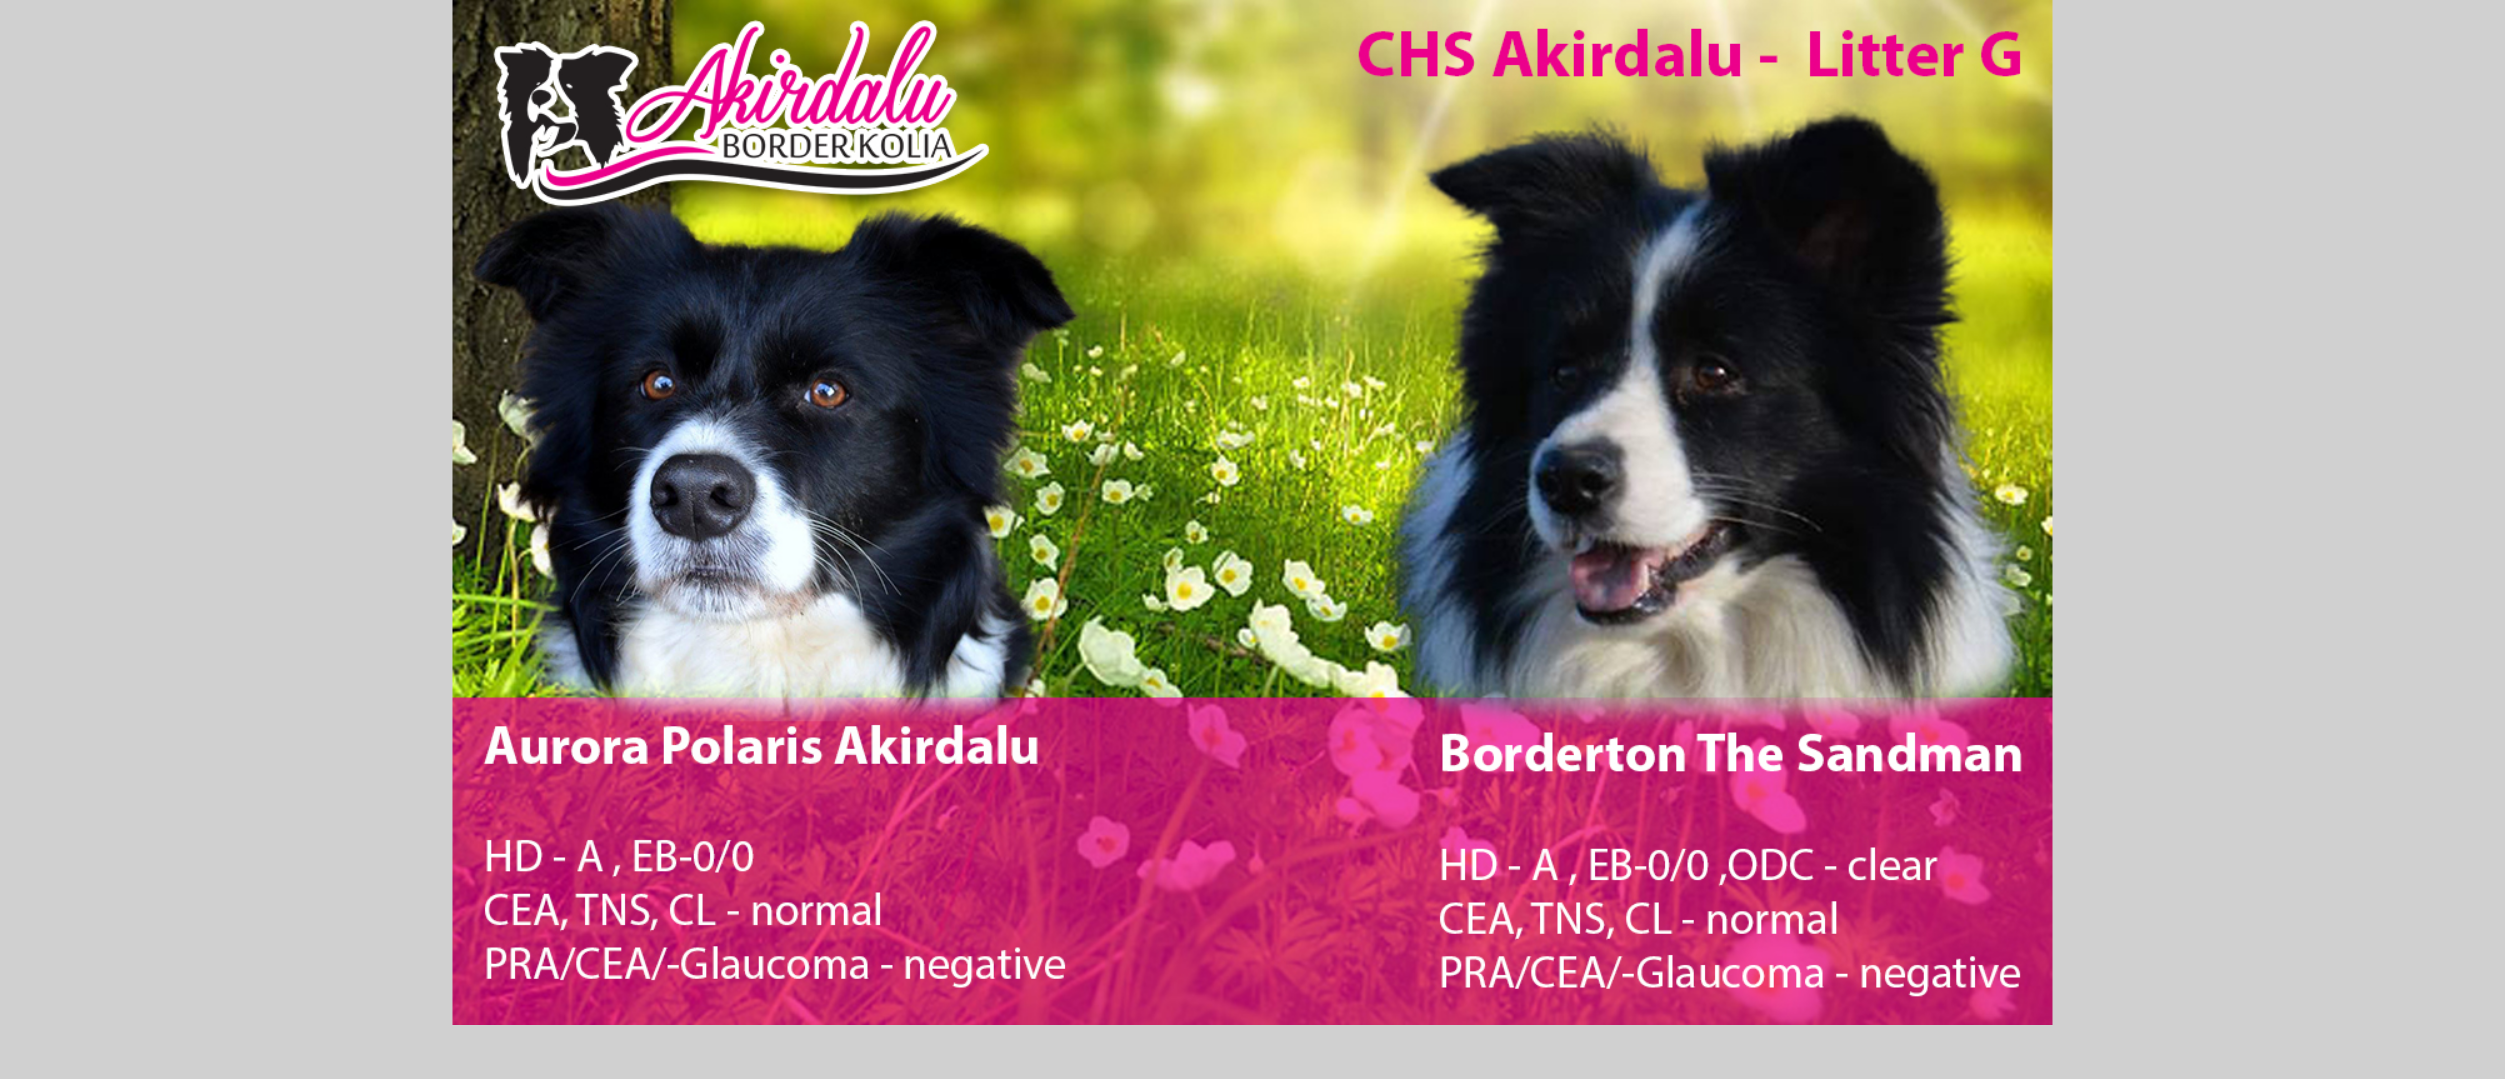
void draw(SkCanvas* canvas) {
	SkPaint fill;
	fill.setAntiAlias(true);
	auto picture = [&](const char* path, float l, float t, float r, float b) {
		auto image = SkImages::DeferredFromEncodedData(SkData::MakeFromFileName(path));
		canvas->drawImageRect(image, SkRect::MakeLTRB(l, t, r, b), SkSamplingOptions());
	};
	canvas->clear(0xFFD0D0D0);
	picture("image0.png", 452, 0, 2053, 1025);
}
